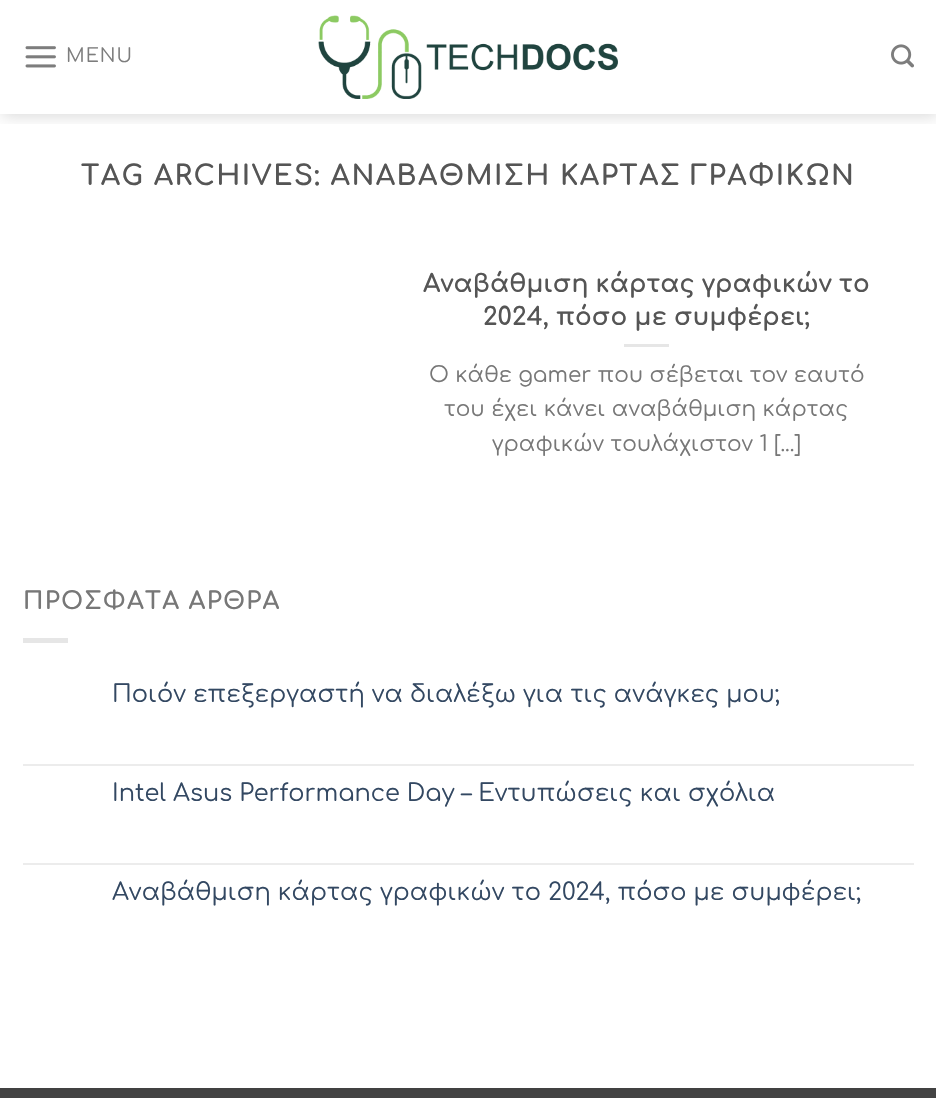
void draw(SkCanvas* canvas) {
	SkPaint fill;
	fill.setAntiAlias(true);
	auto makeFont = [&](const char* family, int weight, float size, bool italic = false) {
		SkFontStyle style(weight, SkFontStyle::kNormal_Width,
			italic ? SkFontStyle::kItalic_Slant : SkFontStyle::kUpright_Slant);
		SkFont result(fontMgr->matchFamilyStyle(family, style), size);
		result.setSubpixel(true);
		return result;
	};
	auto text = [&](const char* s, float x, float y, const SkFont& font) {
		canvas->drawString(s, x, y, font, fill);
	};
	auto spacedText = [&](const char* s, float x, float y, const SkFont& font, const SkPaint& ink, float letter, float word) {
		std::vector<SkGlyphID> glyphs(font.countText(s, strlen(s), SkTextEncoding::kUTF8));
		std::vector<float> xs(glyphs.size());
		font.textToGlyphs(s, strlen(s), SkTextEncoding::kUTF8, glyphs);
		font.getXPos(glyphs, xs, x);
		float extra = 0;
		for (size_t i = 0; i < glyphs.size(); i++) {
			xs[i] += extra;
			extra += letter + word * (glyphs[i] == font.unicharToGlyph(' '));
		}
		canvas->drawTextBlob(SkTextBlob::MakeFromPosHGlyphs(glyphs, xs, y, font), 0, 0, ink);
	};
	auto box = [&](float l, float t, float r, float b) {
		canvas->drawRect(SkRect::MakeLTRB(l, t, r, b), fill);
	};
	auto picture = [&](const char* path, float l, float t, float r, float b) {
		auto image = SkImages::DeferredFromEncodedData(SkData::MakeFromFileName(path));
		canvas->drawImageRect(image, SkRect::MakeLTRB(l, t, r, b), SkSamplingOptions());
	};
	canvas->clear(0xFFFFFFFF);
	canvas->save();
	canvas->clipRect(SkRect::MakeLTRB(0, 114, 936, 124));
	fill.setColor(0x26000000);
	fill.setMaskFilter(SkMaskFilter::MakeBlur(kNormal_SkBlurStyle, 7.5f));
	canvas->drawRect(SkRect::MakeLTRB(2, 2, 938, 116), fill);
	fill.setMaskFilter(nullptr);
	canvas->restore();
	picture("image0.png", 25, 46, 56, 68);
	picture("image1.png", 318, 15, 618, 99);
	picture("image2.png", 891, 44, 914, 68);
	fill.setColor(0xFFE6E6E6);
	box(624, 344, 669, 347);
	box(23, 638, 68, 643);
	fill.setColor(0xFFECECEC);
	box(23, 764, 914, 766);
	box(23, 863, 914, 865);
	fill.setColor(0xFF444444);
	box(0, 1090, 936, 1098);
	fill.setColor(0xFF414141);
	box(0, 1088, 936, 1090);
	auto font1 = makeFont("Comfortaa", 400, 19);
	fill.setColor(0xFF7D7D7D);
	spacedText("MENU", 66, 62, font1, fill, 1, 0);
	auto font2 = makeFont("Comfortaa", 700, 27.6f);
	fill.setColor(0xFF555555);
	spacedText("TAG ARCHIVES: ΑΝΑΒΑΘΜΙΣΗ ΚΑΡΤΑΣ ΓΡΑΦΙΚΩΝ", 81, 185, font2, fill, 1.4f, 0);
	auto font3 = makeFont("Comfortaa", 700, 24.8f);
	text("Αναβάθμιση κάρτας γραφικών το", 423, 292, font3);
	text("2024, πόσο με συμφέρει;", 483, 325, font3);
	auto font4 = makeFont("Comfortaa", 400, 21.6f);
	fill.setColor(0xFF777777);
	text("Ο κάθε gamer που σέβεται τον εαυτό", 429, 382, font4);
	text("του έχει κάνει αναβάθμιση κάρτας", 444, 416, font4);
	text("γραφικών τουλάχιστον 1 [...]", 492, 451, font4);
	auto font5 = makeFont("Comfortaa", 700, 24);
	spacedText("ΠΡΟΣΦΑΤΑ ΑΡΘΡΑ", 23, 609, font5, fill, 1.25f, 0);
	auto font6 = makeFont("Comfortaa", 400, 24);
	fill.setColor(0xFF334862);
	text("Ποιόν επεξεργαστή να διαλέξω για τις ανάγκες μου;", 112, 702, font6);
	text("Intel Asus Performance Day – Εντυπώσεις και σχόλια", 112, 801, font6);
	text("Αναβάθμιση κάρτας γραφικών το 2024, πόσο με συμφέρει;", 112, 900, font6);
}
